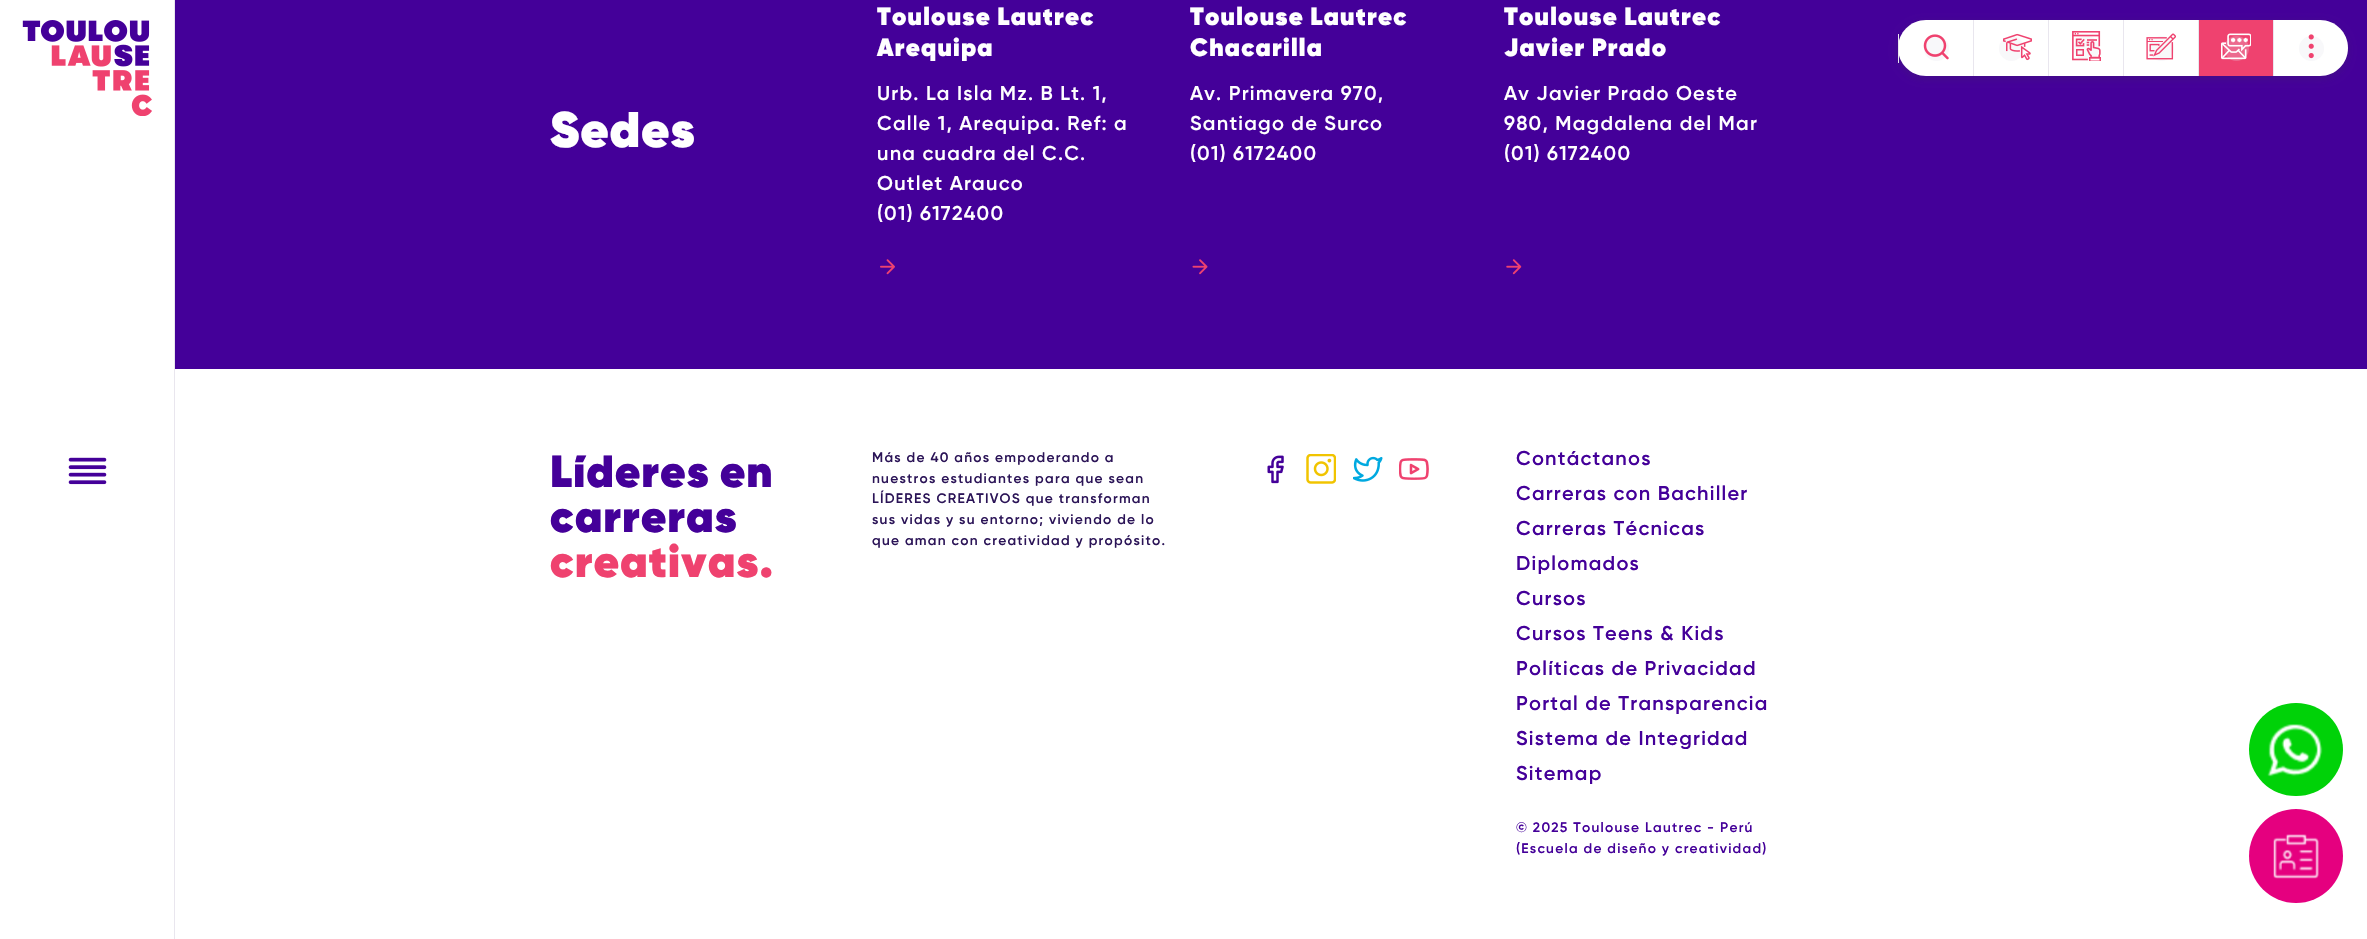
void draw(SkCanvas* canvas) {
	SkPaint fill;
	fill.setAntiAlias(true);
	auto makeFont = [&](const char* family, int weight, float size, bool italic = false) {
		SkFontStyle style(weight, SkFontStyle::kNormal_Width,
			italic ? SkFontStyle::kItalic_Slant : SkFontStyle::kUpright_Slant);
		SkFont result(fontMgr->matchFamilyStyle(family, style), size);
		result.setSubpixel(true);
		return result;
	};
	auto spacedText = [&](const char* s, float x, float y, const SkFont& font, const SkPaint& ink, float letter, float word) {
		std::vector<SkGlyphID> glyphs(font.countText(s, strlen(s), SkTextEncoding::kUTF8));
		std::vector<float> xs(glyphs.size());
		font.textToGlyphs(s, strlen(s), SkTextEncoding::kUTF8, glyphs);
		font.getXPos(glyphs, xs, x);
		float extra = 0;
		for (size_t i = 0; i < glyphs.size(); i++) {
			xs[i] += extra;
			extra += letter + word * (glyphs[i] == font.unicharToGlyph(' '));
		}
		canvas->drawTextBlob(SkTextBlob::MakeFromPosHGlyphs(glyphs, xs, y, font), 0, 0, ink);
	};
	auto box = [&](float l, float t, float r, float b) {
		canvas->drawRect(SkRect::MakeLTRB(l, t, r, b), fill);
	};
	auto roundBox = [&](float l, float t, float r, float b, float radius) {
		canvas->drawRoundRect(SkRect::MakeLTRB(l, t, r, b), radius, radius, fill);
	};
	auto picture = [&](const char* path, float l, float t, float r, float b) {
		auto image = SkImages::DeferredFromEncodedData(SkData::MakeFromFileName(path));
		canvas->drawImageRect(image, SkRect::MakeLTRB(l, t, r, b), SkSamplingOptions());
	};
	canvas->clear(0xFFFFFFFF);
	fill.setColor(0xFFE9E6EE);
	box(174, 0, 175, 939);
	picture("image0.png", 22, 20, 152, 116);
	picture("image1.png", 68, 457, 107, 485);
	fill.setColor(0xFF440099);
	box(175, 0, 2367, 369);
	picture("image2.png", 880, 259, 895, 275);
	picture("image3.png", 1192, 259, 1208, 275);
	picture("image4.png", 1506, 259, 1522, 275);
	fill.setColor(0x29403C43);
	fill.setMaskFilter(SkMaskFilter::MakeBlur(kNormal_SkBlurStyle, 3));
	canvas->drawRoundRect(SkRect::MakeLTRB(1896, 21, 2349, 80), 29.5f, 29.5f, fill);
	fill.setMaskFilter(nullptr);
	fill.setColor(0xFFFFFFFF);
	canvas->drawPath(SkPathBuilder().moveTo(1926, 20).lineTo(1973, 20).lineTo(1973, 76).lineTo(1926, 76).cubicTo(1910.5f, 76, 1898, 63.5f, 1898, 48).cubicTo(1898, 32.5f, 1910.5f, 20, 1926, 20).close().detach(), fill);
	fill.setColor(0xFFE9E6EE);
	box(1898, 34, 1899, 63);
	fill.setColor(0xFFF8F8FA);
	canvas->drawCircle(1936.5f, 48.5f, 12.5f, fill);
	picture("image5.png", 1923, 34, 1949, 60);
	fill.setColor(0xFFFFFFFF);
	box(1974, 20, 2048, 76);
	fill.setColor(0xFFE9E6EE);
	box(1973, 20, 1974, 76);
	fill.setColor(0xFFF8F8FA);
	canvas->drawCircle(2011.5f, 48.5f, 12.5f, fill);
	picture("image6.png", 2003, 33, 2032, 61);
	fill.setColor(0xFFFFFFFF);
	box(2049, 20, 2123, 76);
	fill.setColor(0xFFE9E6EE);
	box(2048, 20, 2049, 76);
	fill.setColor(0xFFF8F8FA);
	canvas->drawCircle(2086.5f, 48.5f, 12.5f, fill);
	picture("image7.png", 2072, 31, 2101, 61);
	fill.setColor(0xFFFFFFFF);
	box(2124, 20, 2198, 76);
	fill.setColor(0xFFE9E6EE);
	box(2123, 20, 2124, 76);
	fill.setColor(0xFFF8F8FA);
	canvas->drawCircle(2161.5f, 48.5f, 12.5f, fill);
	picture("image8.png", 2146, 33, 2176, 60);
	fill.setColor(0xFFEF426F);
	box(2199, 20, 2273, 76);
	fill.setColor(0xFFE9E6EE);
	box(2198, 20, 2199, 76);
	fill.setColor(0xFFEC6A8E);
	canvas->drawCircle(2236.5f, 48.5f, 12.5f, fill);
	picture("image9.png", 2221, 33, 2251, 60);
	fill.setColor(0xFFFFFFFF);
	canvas->drawPath(SkPathBuilder().moveTo(2273, 20).lineTo(2320, 20).cubicTo(2335.5f, 20, 2348, 32.5f, 2348, 48).cubicTo(2348, 63.5f, 2335.5f, 76, 2320, 76).lineTo(2273, 76).close().detach(), fill);
	fill.setColor(0xFFE9E6EE);
	box(2273, 20, 2274, 76);
	fill.setColor(0xFFF8F8FA);
	canvas->drawCircle(2311.5f, 48.5f, 12.5f, fill);
	picture("image10.png", 2308, 34, 2314, 59);
	picture("image11.png", 1267, 455, 1284, 484);
	picture("image12.png", 1306, 454, 1336, 484);
	picture("image13.png", 1353, 456, 1383, 482);
	picture("image14.png", 1399, 458, 1429, 480);
	fill.setColor(0xFF00D208);
	roundBox(2249, 703, 2343, 796, 46.5f);
	picture("image15.png", 2267, 724, 2323, 777);
	fill.setColor(0xFFE5007F);
	canvas->drawCircle(2296, 856, 47, fill);
	picture("image16.png", 2273, 834, 2319, 879);
	auto font1 = makeFont("Gilroy", 900, 50);
	fill.setColor(0xFFFFFFFF);
	spacedText("Sedes", 550, 147, font1, fill, 1.25f, 0);
	auto font2 = makeFont("Gilroy", 900, 25);
	spacedText("Toulouse Lautrec", 877, 25, font2, fill, 1.25f, 0);
	spacedText("Arequipa", 877, 56, font2, fill, 1.25f, 0);
	auto font3 = makeFont("Gilroy", 600, 20);
	spacedText("Urb. La Isla Mz. B Lt. 1,", 877, 100, font3, fill, 1.25f, 0);
	spacedText("Calle 1, Arequipa. Ref: a", 877, 130, font3, fill, 1.25f, 0);
	spacedText("una cuadra del C.C.", 877, 160, font3, fill, 1.25f, 0);
	spacedText("Outlet Arauco", 877, 190, font3, fill, 1.25f, 0);
	spacedText("(01) 6172400", 877, 220, font3, fill, 1.25f, 0);
	spacedText("Toulouse Lautrec", 1190, 25, font2, fill, 1.25f, 0);
	spacedText("Chacarilla", 1190, 56, font2, fill, 1.25f, 0);
	spacedText("Av. Primavera 970,", 1190, 100, font3, fill, 1.25f, 0);
	spacedText("Santiago de Surco", 1190, 130, font3, fill, 1.25f, 0);
	spacedText("(01) 6172400", 1190, 160, font3, fill, 1.25f, 0);
	spacedText("Toulouse Lautrec", 1504, 25, font2, fill, 1.25f, 0);
	spacedText("Javier Prado", 1504, 56, font2, fill, 1.25f, 0);
	spacedText("Av Javier Prado Oeste", 1504, 100, font3, fill, 1.25f, 0);
	spacedText("980, Magdalena del Mar", 1504, 130, font3, fill, 1.25f, 0);
	spacedText("(01) 6172400", 1504, 160, font3, fill, 1.25f, 0);
	auto font4 = makeFont("Gilroy", 900, 45);
	fill.setColor(0xFF440099);
	spacedText("Líderes en", 550, 487, font4, fill, 1.25f, 0);
	spacedText("carreras", 550, 532, font4, fill, 1.25f, 0);
	fill.setColor(0xFFEF426F);
	spacedText("creativas.", 550, 577, font4, fill, 1.25f, 0);
	auto font5 = makeFont("Gilroy", 600, 13.75f);
	fill.setColor(0xFF2B1457);
	spacedText("Más de 40 años empoderando a", 872, 462, font5, fill, 1.25f, 0);
	spacedText("nuestros estudiantes para que sean", 872, 483, font5, fill, 1.25f, 0);
	spacedText("LÍDERES CREATIVOS que transforman", 872, 503, font5, fill, 1.25f, 0);
	spacedText("sus vidas y su entorno; viviendo de lo", 872, 524, font5, fill, 1.25f, 0);
	spacedText("que aman con creatividad y propósito.", 872, 545, font5, fill, 1.25f, 0);
	fill.setColor(0xFF440099);
	spacedText("Contáctanos", 1516, 465, font3, fill, 1.25f, 0);
	spacedText("Carreras con Bachiller", 1516, 500, font3, fill, 1.25f, 0);
	spacedText("Carreras Técnicas", 1516, 535, font3, fill, 1.25f, 0);
	spacedText("Diplomados", 1516, 570, font3, fill, 1.25f, 0);
	spacedText("Cursos", 1516, 605, font3, fill, 1.25f, 0);
	spacedText("Cursos Teens & Kids", 1516, 640, font3, fill, 1.25f, 0);
	spacedText("Políticas de Privacidad", 1516, 675, font3, fill, 1.25f, 0);
	spacedText("Portal de Transparencia", 1516, 710, font3, fill, 1.25f, 0);
	canvas->save();
	canvas->clipRect(SkRect::MakeLTRB(1516, 729, 1749, 749));
	spacedText("Sistema de Integridad", 1516, 745, font3, fill, 1.25f, 0);
	canvas->restore();
	spacedText("Sitemap", 1516, 780, font3, fill, 1.25f, 0);
	spacedText("© 2025 Toulouse Lautrec - Perú", 1516, 832, font5, fill, 1.25f, 0);
	spacedText("(Escuela de diseño y creatividad)", 1516, 853, font5, fill, 1.25f, 0);
}
